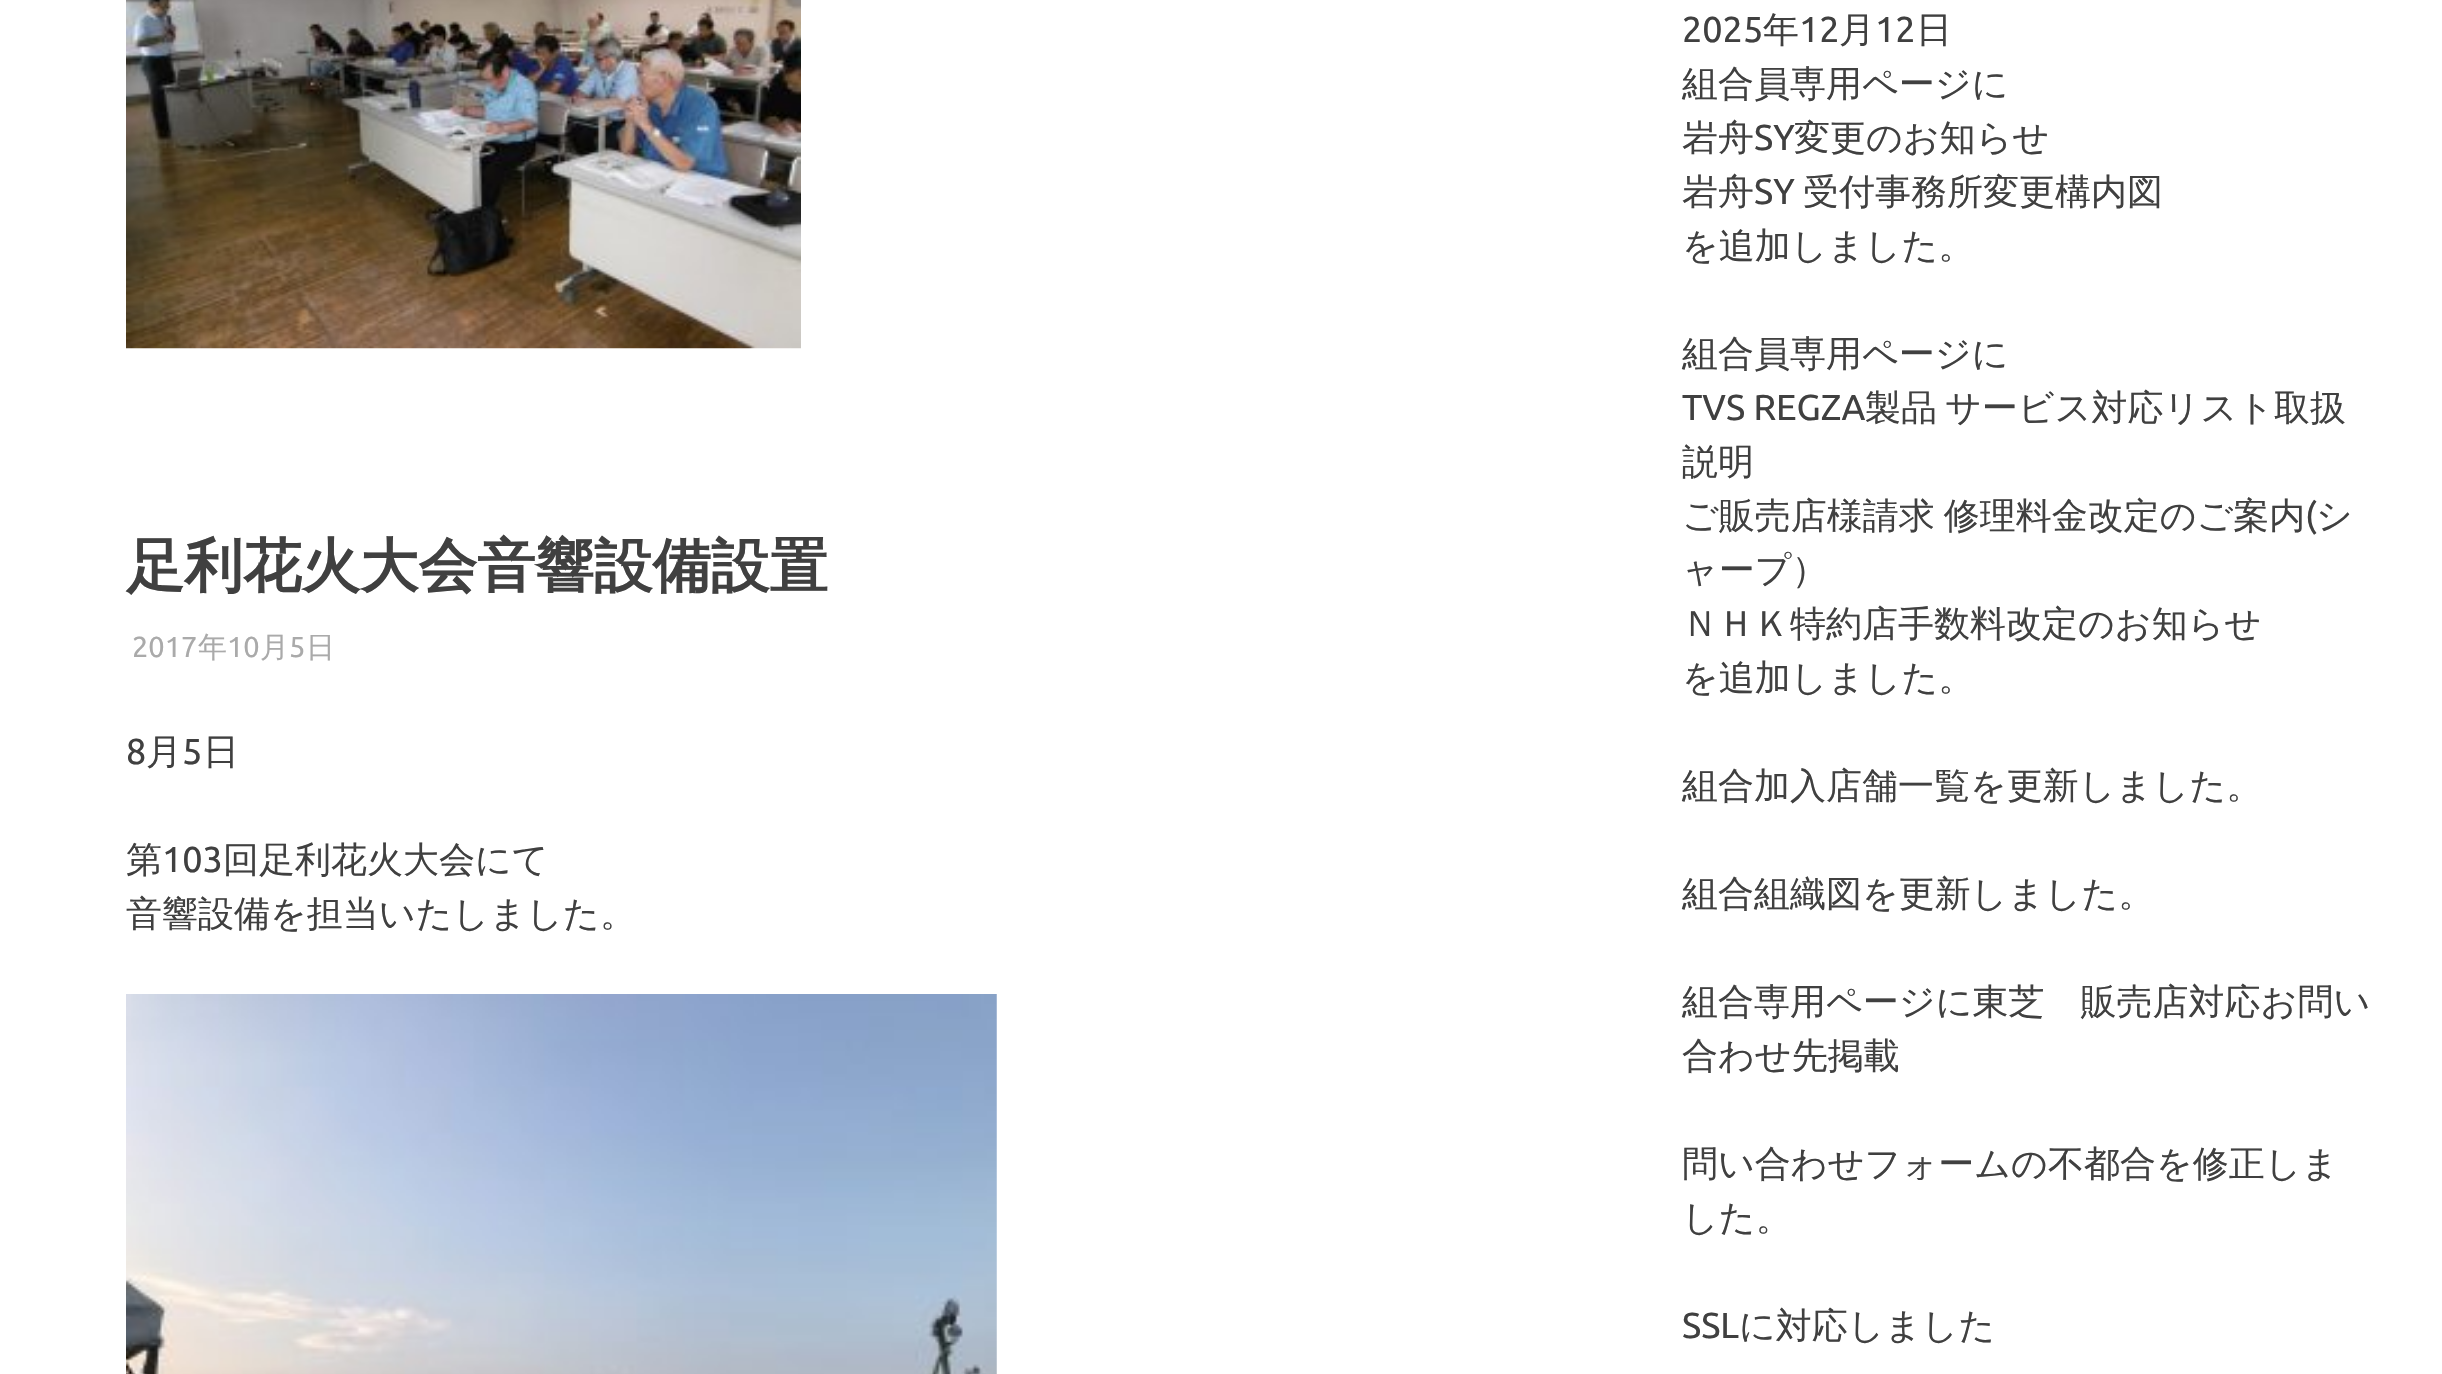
void draw(SkCanvas* canvas) {
	SkPaint fill;
	fill.setAntiAlias(true);
	auto makeFont = [&](const char* family, int weight, float size, bool italic = false) {
		SkFontStyle style(weight, SkFontStyle::kNormal_Width,
			italic ? SkFontStyle::kItalic_Slant : SkFontStyle::kUpright_Slant);
		SkFont result(fontMgr->matchFamilyStyle(family, style), size);
		result.setSubpixel(true);
		return result;
	};
	auto text = [&](const char* s, float x, float y, const SkFont& font) {
		canvas->drawString(s, x, y, font, fill);
	};
	auto spacedText = [&](const char* s, float x, float y, const SkFont& font, const SkPaint& ink, float letter, float word) {
		std::vector<SkGlyphID> glyphs(font.countText(s, strlen(s), SkTextEncoding::kUTF8));
		std::vector<float> xs(glyphs.size());
		font.textToGlyphs(s, strlen(s), SkTextEncoding::kUTF8, glyphs);
		font.getXPos(glyphs, xs, x);
		float extra = 0;
		for (size_t i = 0; i < glyphs.size(); i++) {
			xs[i] += extra;
			extra += letter + word * (glyphs[i] == font.unicharToGlyph(' '));
		}
		canvas->drawTextBlob(SkTextBlob::MakeFromPosHGlyphs(glyphs, xs, y, font), 0, 0, ink);
	};
	auto picture = [&](const char* path, float l, float t, float r, float b) {
		auto image = SkImages::DeferredFromEncodedData(SkData::MakeFromFileName(path));
		canvas->drawImageRect(image, SkRect::MakeLTRB(l, t, r, b), SkSamplingOptions());
	};
	canvas->clear(0xFFFFFFFF);
	picture("image0.png", 126, 0, 801, 349);
	picture("image1.png", 126, 994, 997, 1374);
	auto font1 = makeFont("WenQuanYi Zen Hei", 700, 58.5f);
	fill.setColor(0xFF404040);
	text("足利花火大会音響設備設置", 126, 586, font1);
	auto font2 = makeFont("Ubuntu", 400, 29);
	fill.setColor(0xFFAAAAAA);
	text("2017", 132, 657, font2);
	auto font3 = makeFont("WenQuanYi Zen Hei", 500, 29);
	text("年", 198, 657, font3);
	text("10", 227, 657, font2);
	text("月", 260, 657, font3);
	text("5", 289, 657, font2);
	text("日", 306, 657, font3);
	auto font4 = makeFont("Ubuntu", 400, 36);
	fill.setColor(0xFF404040);
	text("8", 126, 764, font4);
	auto font5 = makeFont("WenQuanYi Zen Hei", 500, 36);
	text("月", 146, 764, font5);
	text("5", 182, 764, font4);
	text("日", 203, 764, font5);
	text("第", 126, 872, font5);
	text("103", 162, 872, font4);
	text("回足利花火大会にて", 223, 872, font5);
	text("音響設備を担当いたしました。", 126, 926, font5);
	text("2025", 1682, 42, font4);
	text("年", 1763, 42, font5);
	text("12", 1799, 42, font4);
	text("月", 1839, 42, font5);
	text("12", 1875, 42, font4);
	text("日", 1916, 42, font5);
	text("組合員専用ページに", 1682, 96, font5);
	text("岩舟", 1682, 150, font5);
	text("SY", 1754, 150, font4);
	text("変更のお知らせ", 1794, 150, font5);
	text("岩舟", 1682, 204, font5);
	text("SY", 1754, 204, font4);
	text("受付事務所変更構内図", 1803, 204, font5);
	text("を追加しました。", 1682, 258, font5);
	text("組合員専用ページに", 1682, 366, font5);
	text("TVS REGZA", 1682, 420, font4);
	text("製品", 1865, 420, font5);
	text("サービス対応リスト取扱", 1945, 420, font5);
	text("説明", 1682, 474, font5);
	spacedText("ご販売店様請求 修理料金改定のご案内", 1682, 528, font5, fill, 0, -2);
	text("(", 2305, 528, font4);
	text("シ", 2316, 528, font5);
	text("ャープ）", 1682, 582, font5);
	text("ＮＨＫ特約店手数料改定のお知らせ", 1682, 636, font5);
	text("を追加しました。", 1682, 690, font5);
	text("組合加入店舗一覧を更新しました。", 1682, 798, font5);
	text("組合組織図を更新しました。", 1682, 906, font5);
	text("組合専用ページに東芝　販売店対応お問い", 1682, 1014, font5);
	text("合わせ先掲載", 1682, 1068, font5);
	text("問い合わせフォームの不都合を修正しま", 1682, 1176, font5);
	text("した。", 1682, 1230, font5);
	text("SSL", 1682, 1338, font4);
	text("に対応しました", 1739, 1338, font5);
}
